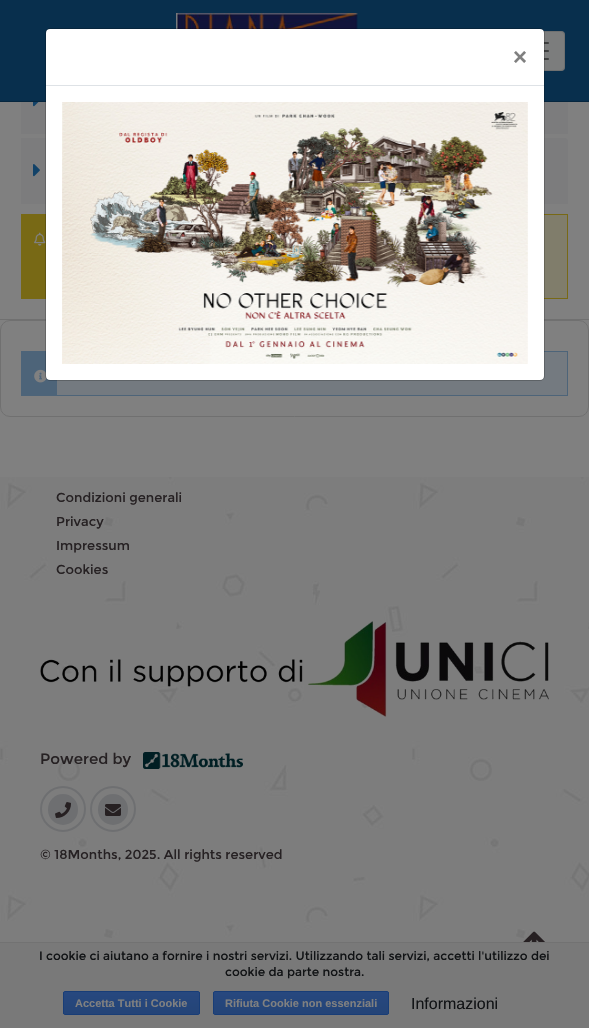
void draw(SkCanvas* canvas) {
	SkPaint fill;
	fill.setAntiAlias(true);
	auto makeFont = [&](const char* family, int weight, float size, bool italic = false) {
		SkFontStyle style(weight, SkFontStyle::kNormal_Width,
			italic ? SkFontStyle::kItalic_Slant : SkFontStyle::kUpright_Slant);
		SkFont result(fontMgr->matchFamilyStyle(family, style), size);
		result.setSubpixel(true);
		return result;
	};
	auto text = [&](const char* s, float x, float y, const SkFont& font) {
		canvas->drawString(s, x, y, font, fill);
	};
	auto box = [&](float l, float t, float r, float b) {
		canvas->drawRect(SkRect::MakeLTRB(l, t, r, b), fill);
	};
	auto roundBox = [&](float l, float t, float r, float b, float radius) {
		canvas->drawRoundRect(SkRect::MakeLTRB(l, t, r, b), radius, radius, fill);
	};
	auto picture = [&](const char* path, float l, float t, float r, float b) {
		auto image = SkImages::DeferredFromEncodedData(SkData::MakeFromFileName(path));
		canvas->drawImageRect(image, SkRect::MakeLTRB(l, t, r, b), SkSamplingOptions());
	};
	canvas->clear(0xFF808080);
	fill.setStyle(SkPaint::kStroke_Style);
	fill.setStrokeWidth(1);
	fill.setColor(0xFF707070);
	canvas->drawRect(SkRect::MakeLTRB(-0.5f, -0.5f, 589.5f, 319.5f), fill);
	fill.setStyle(SkPaint::kFill_Style);
	fill.setColor(0xFF7C7C7D);
	box(22, 102, 567, 133);
	fill.setStyle(SkPaint::kStroke_Style);
	canvas->drawRect(SkRect::MakeLTRB(21.5f, 68.5f, 567.5f, 133.5f), fill);
	picture("image0.png", 33, 102, 39, 107);
	fill.setStyle(SkPaint::kFill_Style);
	canvas->drawPath(SkPathBuilder().moveTo(21, 138).lineTo(565, 138).cubicTo(566.5f, 138, 568, 139.5f, 568, 141).lineTo(568, 204).lineTo(21, 204).close().detach(), fill);
	picture("image1.png", 33, 164, 40, 177);
	fill.setColor(0xFF807D6B);
	box(544, 215, 567, 298);
	fill.setStyle(SkPaint::kStroke_Style);
	fill.setColor(0xFF786915);
	canvas->drawRect(SkRect::MakeLTRB(21.5f, 214.5f, 567.5f, 298.5f), fill);
	fill.setStyle(SkPaint::kFill_Style);
	box(22, 215, 46, 298);
	picture("image2.png", 34, 232, 46, 246);
	fill.setStyle(SkPaint::kStroke_Style);
	fill.setColor(0xFF707070);
	canvas->drawRoundRect(SkRect::MakeLTRB(0.5f, 320.5f, 588.5f, 416.5f), 9.5f, 9.5f, fill);
	fill.setStyle(SkPaint::kFill_Style);
	fill.setColor(0xFF747A80);
	box(57, 352, 567, 395);
	fill.setStyle(SkPaint::kStroke_Style);
	fill.setColor(0xFF4D6479);
	canvas->drawRect(SkRect::MakeLTRB(21.5f, 351.5f, 567.5f, 395.5f), fill);
	fill.setStyle(SkPaint::kFill_Style);
	box(22, 352, 57, 395);
	picture("image3.png", 34, 369, 47, 383);
	fill.setColor(0xFF082F4D);
	box(0, 0, 589, 101);
	fill.setColor(0xFF06263E);
	box(0, 101, 589, 102);
	picture("image4.png", 176, 13, 358, 29);
	fill.setColor(0xFF7C7D7D);
	roundBox(509, 31, 565, 71, 4);
	fill.setStyle(SkPaint::kStroke_Style);
	fill.setColor(0x1A000000);
	canvas->drawRoundRect(SkRect::MakeLTRB(509.5f, 31.5f, 564.5f, 70.5f), 3.5f, 3.5f, fill);
	picture("image5.png", 544, 42, 549, 60);
	fill.setStyle(SkPaint::kFill_Style);
	fill.setColor(0xFFFFFFFF);
	roundBox(46, 29, 544, 380, 4);
	fill.setStyle(SkPaint::kStroke_Style);
	fill.setColor(0x33000000);
	canvas->drawRoundRect(SkRect::MakeLTRB(45.5f, 28.5f, 544.5f, 380.5f), 4.5f, 4.5f, fill);
	fill.setStyle(SkPaint::kFill_Style);
	fill.setColor(0xFFDEE2E6);
	box(46, 85, 544, 86);
	picture("image6.png", 62, 102, 528, 364);
	fill.setColor(0xFF7D7D7D);
	box(0, 938, 589, 942);
	picture("image7.png", 0, 477, 589, 938);
	picture("image8.png", 40, 621, 549, 717);
	picture("image9.png", 143, 752, 243, 769);
	fill.setColor(0xFF6E6F71);
	roundBox(48, 794, 78, 825, 15);
	picture("image10.png", 55, 802, 71, 818);
	fill.setStyle(SkPaint::kStroke_Style);
	fill.setStrokeWidth(2);
	canvas->drawCircle(63, 809, 22, fill);
	fill.setStyle(SkPaint::kFill_Style);
	roundBox(98, 794, 128, 825, 15);
	picture("image11.png", 105, 804, 121, 816);
	fill.setStyle(SkPaint::kStroke_Style);
	canvas->drawCircle(113, 809, 22, fill);
	fill.setStyle(SkPaint::kFill_Style);
	fill.setColor(0xFF797979);
	box(0, 943, 589, 1028);
	fill.setColor(0xFF727272);
	box(0, 942, 589, 943);
	canvas->save();
	canvas->clipPath(SkPathBuilder().moveTo(65, 991).lineTo(198, 991).cubicTo(199, 991, 200, 992, 200, 993).lineTo(200, 1013).cubicTo(200, 1014, 199, 1015, 198, 1015).lineTo(65, 1015).cubicTo(64, 1015, 63, 1014, 63, 1013).lineTo(63, 993).cubicTo(63, 992, 64, 991, 65, 991).close().detach(), true);
	{
		const SkColor colors[] = {0xFF27487F, 0xFF244477};
		const float stops[] = {0, 1};
		const SkPoint ends[] = {{132, 992}, {132, 1014}};
		fill.setShader(SkGradientShader::MakeLinear(ends, colors, stops, 2, SkTileMode::kClamp));
		fill.setAlpha(255);
	}
	box(63, 992, 200, 1014);
	canvas->restore();
	fill.setStyle(SkPaint::kStroke_Style);
	fill.setStrokeWidth(1);
	fill.setShader(nullptr);
	fill.setColor(0xFF183D77);
	canvas->drawRoundRect(SkRect::MakeLTRB(63.5f, 991.5f, 199.5f, 1014.5f), 1.5f, 1.5f, fill);
	canvas->save();
	canvas->clipPath(SkPathBuilder().moveTo(215, 991).lineTo(387, 991).cubicTo(388, 991, 389, 992, 389, 993).lineTo(389, 1013).cubicTo(389, 1014, 388, 1015, 387, 1015).lineTo(215, 1015).cubicTo(214, 1015, 213, 1014, 213, 1013).lineTo(213, 993).cubicTo(213, 992, 214, 991, 215, 991).close().detach(), true);
	fill.setStyle(SkPaint::kFill_Style);
	{
		const SkColor colors[] = {0xFF27487F, 0xFF244477};
		const float stops[] = {0, 1};
		const SkPoint ends[] = {{301, 992}, {301, 1014}};
		fill.setShader(SkGradientShader::MakeLinear(ends, colors, stops, 2, SkTileMode::kClamp));
		fill.setAlpha(255);
	}
	box(213, 992, 389, 1014);
	canvas->restore();
	fill.setStyle(SkPaint::kStroke_Style);
	fill.setShader(nullptr);
	fill.setColor(0xFF183D77);
	canvas->drawRoundRect(SkRect::MakeLTRB(213.5f, 991.5f, 388.5f, 1014.5f), 1.5f, 1.5f, fill);
	picture("image12.png", 523, 931, 545, 942);
	auto font1 = makeFont("Liberation Sans", 700, 24);
	fill.setStyle(SkPaint::kFill_Style);
	fill.setColor(0xFF808080);
	text("×", 513, 65, font1);
	auto font2 = makeFont("Montserrat", 400, 13);
	fill.setColor(0xFF262123);
	text("Condizioni generali", 56, 502, font2);
	text("Privacy", 56, 526, font2);
	text("Impressum", 56, 550, font2);
	text("Cookies", 56, 574, font2);
	auto font3 = makeFont("Montserrat", 400, 15);
	text("Powered by", 40, 764, font3);
	text("© 18Months, 2025. All rights reserved", 40, 859, font2);
	auto font4 = makeFont("Montserrat", 400, 12);
	fill.setColor(0xFF111315);
	text("I cookie ci aiutano a fornire i nostri servizi. Utilizzando tali servizi, accetti l'utilizzo dei", 39, 960, font4);
	text("cookie da parte nostra.", 225, 976, font4);
	auto font5 = makeFont("Liberation Sans", 700, 11);
	fill.setColor(0xFF808080);
	text("Accetta Tutti i Cookie", 75, 1007, font5);
	text("Rifiuta Cookie non essenziali", 225, 1007, font5);
	auto font6 = makeFont("Liberation Sans", 400, 16);
	fill.setColor(0xFF111315);
	text("Informazioni", 411, 1009, font6);
}
